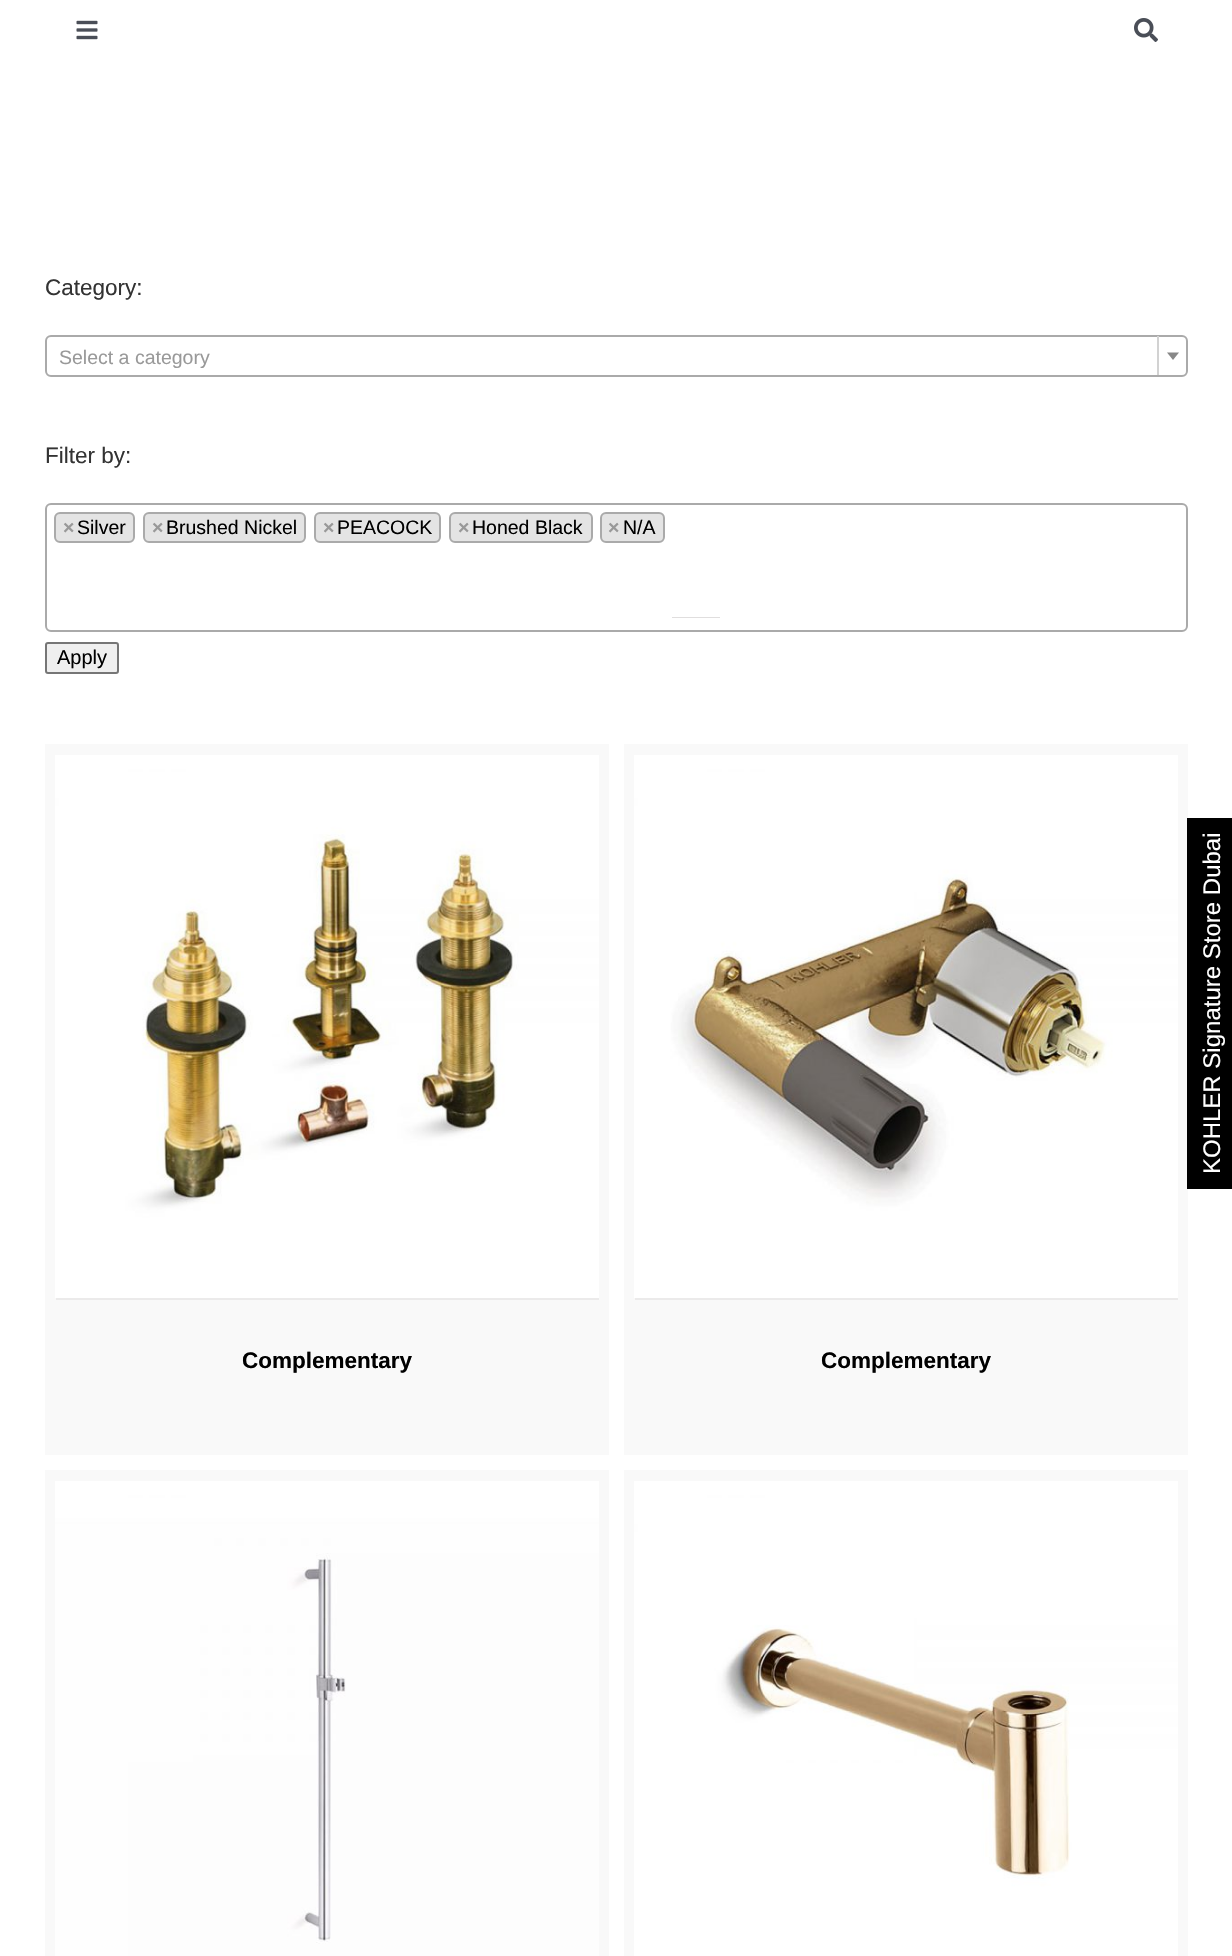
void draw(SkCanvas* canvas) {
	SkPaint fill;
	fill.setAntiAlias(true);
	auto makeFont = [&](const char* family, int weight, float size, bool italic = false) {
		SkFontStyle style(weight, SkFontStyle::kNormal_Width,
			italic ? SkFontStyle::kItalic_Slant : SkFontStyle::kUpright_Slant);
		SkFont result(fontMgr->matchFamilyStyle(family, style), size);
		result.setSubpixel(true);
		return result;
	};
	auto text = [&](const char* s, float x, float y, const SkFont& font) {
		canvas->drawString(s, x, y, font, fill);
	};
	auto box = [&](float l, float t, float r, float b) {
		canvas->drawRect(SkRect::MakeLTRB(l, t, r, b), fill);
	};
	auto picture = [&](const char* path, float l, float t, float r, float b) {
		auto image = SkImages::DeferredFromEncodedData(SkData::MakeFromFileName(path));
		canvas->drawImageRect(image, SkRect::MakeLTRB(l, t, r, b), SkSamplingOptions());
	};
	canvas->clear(0xFFFFFFFF);
	picture("image0.png", 76, 20, 98, 40);
	picture("image1.png", 1134, 18, 1158, 42);
	fill.setStyle(SkPaint::kStroke_Style);
	fill.setStrokeWidth(2);
	fill.setColor(0xFFAAAAAA);
	canvas->drawRoundRect(SkRect::MakeLTRB(46, 336, 1187, 376), 5, 5, fill);
	fill.setStyle(SkPaint::kFill_Style);
	fill.setColor(0xFFD2D2D2);
	box(1157, 336, 1159, 375);
	fill.setColor(0xFF888888);
	canvas->drawPath(SkPathBuilder().moveTo(1167, 352.5f).lineTo(1179, 352.5f).lineTo(1173, 360).close().detach(), fill);
	fill.setStyle(SkPaint::kStroke_Style);
	fill.setColor(0xFFAAAAAA);
	canvas->drawRoundRect(SkRect::MakeLTRB(46, 504, 1187, 631), 5, 5, fill);
	fill.setStyle(SkPaint::kFill_Style);
	fill.setColor(0xFFE4E4E4);
	canvas->drawRoundRect(SkRect::MakeLTRB(55, 513, 134, 542), 5, 5, fill);
	fill.setStyle(SkPaint::kStroke_Style);
	fill.setColor(0xFFAAAAAA);
	canvas->drawRoundRect(SkRect::MakeLTRB(55, 513, 134, 542), 5, 5, fill);
	fill.setStyle(SkPaint::kFill_Style);
	fill.setColor(0xFFE4E4E4);
	canvas->drawRoundRect(SkRect::MakeLTRB(144, 513, 305, 542), 5, 5, fill);
	fill.setStyle(SkPaint::kStroke_Style);
	fill.setColor(0xFFAAAAAA);
	canvas->drawRoundRect(SkRect::MakeLTRB(144, 513, 305, 542), 5, 5, fill);
	fill.setStyle(SkPaint::kFill_Style);
	fill.setColor(0xFFE4E4E4);
	canvas->drawRoundRect(SkRect::MakeLTRB(315, 513, 440, 542), 5, 5, fill);
	fill.setStyle(SkPaint::kStroke_Style);
	fill.setColor(0xFFAAAAAA);
	canvas->drawRoundRect(SkRect::MakeLTRB(315, 513, 440, 542), 5, 5, fill);
	fill.setStyle(SkPaint::kFill_Style);
	fill.setColor(0xFFE4E4E4);
	canvas->drawRoundRect(SkRect::MakeLTRB(450, 513, 592, 542), 5, 5, fill);
	fill.setStyle(SkPaint::kStroke_Style);
	fill.setColor(0xFFAAAAAA);
	canvas->drawRoundRect(SkRect::MakeLTRB(450, 513, 592, 542), 5, 5, fill);
	fill.setStyle(SkPaint::kFill_Style);
	fill.setColor(0xFFE4E4E4);
	canvas->drawRoundRect(SkRect::MakeLTRB(601, 513, 664, 542), 5, 5, fill);
	fill.setStyle(SkPaint::kStroke_Style);
	fill.setColor(0xFFAAAAAA);
	canvas->drawRoundRect(SkRect::MakeLTRB(601, 513, 664, 542), 5, 5, fill);
	fill.setStyle(SkPaint::kFill_Style);
	fill.setColor(0xFFE0DEDE);
	box(672, 617, 720, 618);
	fill.setColor(0xFFEFEFEF);
	canvas->drawRoundRect(SkRect::MakeLTRB(46, 643, 118, 673), 2, 2, fill);
	fill.setStyle(SkPaint::kStroke_Style);
	fill.setColor(0xFF767676);
	canvas->drawRoundRect(SkRect::MakeLTRB(46, 643, 118, 673), 2, 2, fill);
	fill.setStyle(SkPaint::kFill_Style);
	fill.setColor(0xFFF9F9F9);
	box(45, 744, 609, 1455);
	fill.setColor(0xFFEBEAEA);
	box(56, 1298, 599, 1300);
	picture("image2.png", 55, 755, 599, 1298);
	fill.setColor(0xFFF9F9F9);
	box(624, 744, 1188, 1455);
	fill.setColor(0xFFEBEAEA);
	box(635, 1298, 1178, 1300);
	picture("image3.png", 634, 755, 1178, 1298);
	fill.setColor(0xFFF9F9F9);
	box(45, 1470, 609, 1956);
	picture("image4.png", 55, 1481, 599, 1956);
	box(624, 1470, 1188, 1956);
	picture("image5.png", 634, 1481, 1178, 1956);
	fill.setColor(0xFF000000);
	box(1187, 818, 1232, 1189);
	auto font1 = makeFont("Liberation Sans", 400, 22.5f);
	fill.setColor(0xFF333333);
	text("Category:", 45, 295, font1);
	auto font2 = makeFont("Liberation Sans", 400, 19.5f);
	fill.setColor(0xFF999999);
	text("Select a category", 59, 364, font2);
	fill.setColor(0xFF333333);
	text("Filter by:", 45, 463, font1);
	auto font3 = makeFont("Liberation Sans", 700, 19.5f);
	fill.setColor(0xFF999999);
	text("×", 63, 534, font3);
	fill.setColor(0xFF000000);
	text("Silver", 77, 534, font2);
	fill.setColor(0xFF999999);
	text("×", 152, 534, font3);
	fill.setColor(0xFF000000);
	text("Brushed Nickel", 166, 534, font2);
	fill.setColor(0xFF999999);
	text("×", 323, 534, font3);
	fill.setColor(0xFF000000);
	text("PEACOCK", 337, 534, font2);
	fill.setColor(0xFF999999);
	text("×", 458, 534, font3);
	fill.setColor(0xFF000000);
	text("Honed Black", 472, 534, font2);
	fill.setColor(0xFF999999);
	text("×", 608, 534, font3);
	fill.setColor(0xFF000000);
	text("N/A", 623, 534, font2);
	auto font4 = makeFont("Liberation Sans", 400, 20);
	text("Apply", 57, 664, font4);
	auto font5 = makeFont("Liberation Sans", 700, 22.5f);
	text("Complementary", 242, 1368, font5);
	text("Complementary", 821, 1368, font5);
	auto font6 = makeFont("Liberation Sans", 400, 24);
	fill.setColor(0xFFFFFFFF);
	canvas->save();
	canvas->rotate(-90, 1220, 1174);
	text("KOHLER Signature Store Dubai", 1220, 1174, font6);
	canvas->restore();
}
